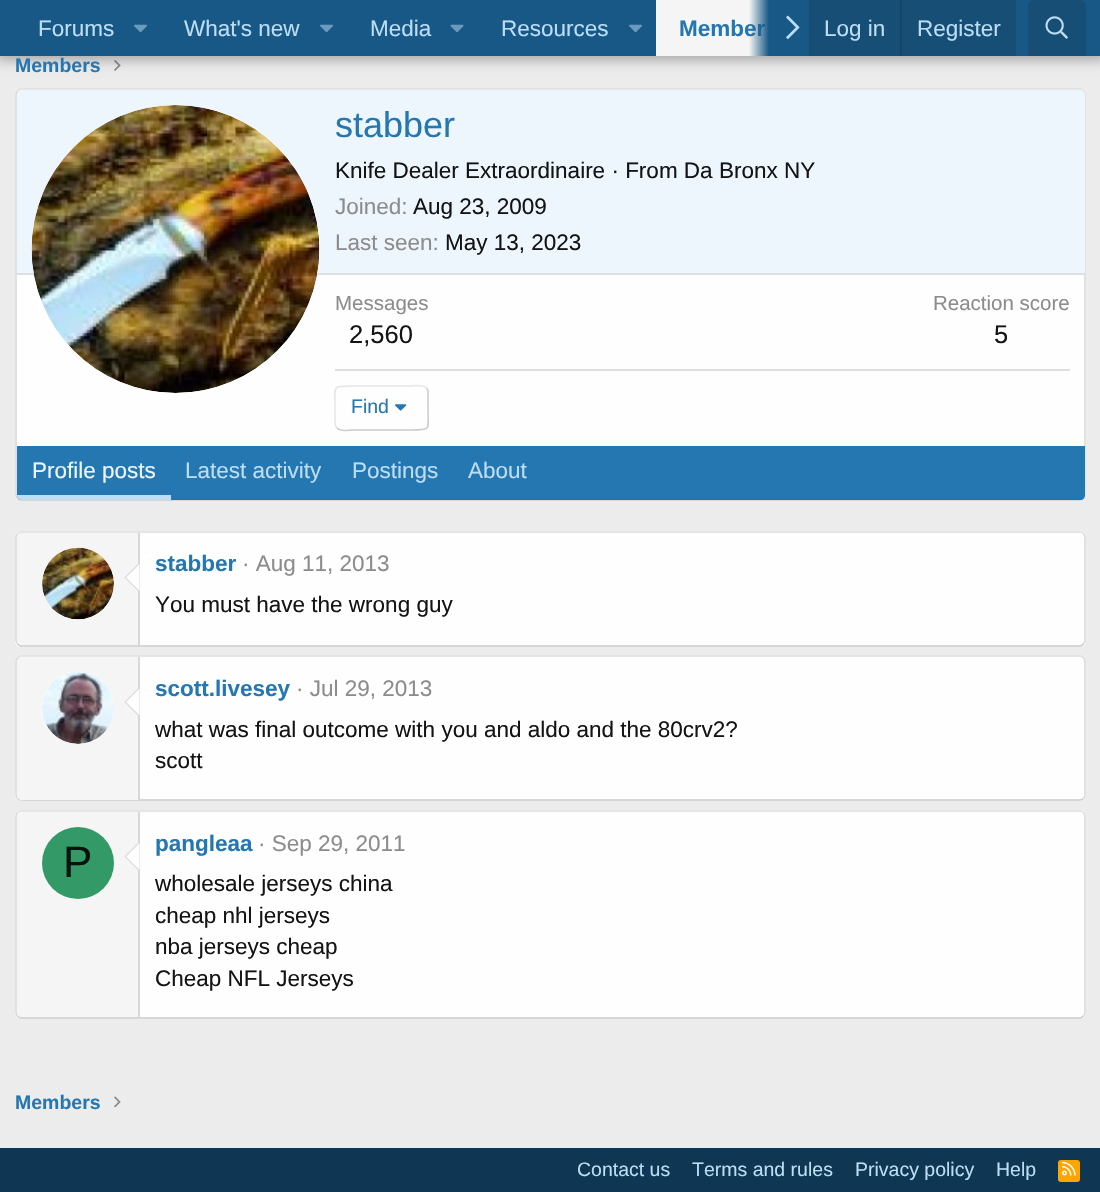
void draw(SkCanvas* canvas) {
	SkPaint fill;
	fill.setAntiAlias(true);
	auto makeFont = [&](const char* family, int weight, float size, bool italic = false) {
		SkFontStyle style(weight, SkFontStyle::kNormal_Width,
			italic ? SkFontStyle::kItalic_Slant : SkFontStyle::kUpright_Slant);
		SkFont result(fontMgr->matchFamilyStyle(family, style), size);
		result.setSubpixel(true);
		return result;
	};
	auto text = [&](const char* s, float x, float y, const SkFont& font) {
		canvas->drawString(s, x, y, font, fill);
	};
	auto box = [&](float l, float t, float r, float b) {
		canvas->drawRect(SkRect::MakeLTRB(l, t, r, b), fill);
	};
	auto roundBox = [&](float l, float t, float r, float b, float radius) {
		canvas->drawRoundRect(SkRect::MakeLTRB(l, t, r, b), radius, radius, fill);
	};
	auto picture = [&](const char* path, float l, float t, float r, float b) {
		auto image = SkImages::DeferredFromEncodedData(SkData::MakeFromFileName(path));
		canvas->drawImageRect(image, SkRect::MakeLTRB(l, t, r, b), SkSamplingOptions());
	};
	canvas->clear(0xFFECECEC);
	picture("image4.png", 114, 60, 121, 71);
	fill.setColor(0x4D000000);
	fill.setMaskFilter(SkMaskFilter::MakeBlur(kNormal_SkBlurStyle, 6));
	canvas->drawRect(SkRect::MakeLTRB(-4, -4, 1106, 60), fill);
	fill.setMaskFilter(nullptr);
	fill.setColor(0xFF185886);
	box(0, 0, 1100, 56);
	picture("image0.png", 134, 24, 147, 33);
	picture("image0.png", 320, 24, 333, 33);
	picture("image1.png", 450, 24, 464, 32);
	picture("image0.png", 629, 24, 642, 33);
	fill.setColor(0xFFF5F5F5);
	box(656, 0, 769, 56);
	picture("image2.png", 786, 15, 800, 39);
	fill.setColor(0xFF174E75);
	box(809, 0, 1016, 56);
	fill.setColor(0xFF174566);
	box(900, 0, 902, 56);
	fill.setColor(0xFF174E75);
	canvas->drawPath(SkPathBuilder().moveTo(1034, 0).lineTo(1080, 0).cubicTo(1083.5f, 0, 1086, 2.5f, 1086, 6).lineTo(1086, 56).lineTo(1028, 56).lineTo(1028, 6).cubicTo(1028, 2.5f, 1030.5f, 0, 1034, 0).close().detach(), fill);
	picture("image3.png", 1045, 16, 1068, 39);
	fill.setColor(0xFFFEFEFE);
	roundBox(15, 89, 1086, 501, 6);
	fill.setStyle(SkPaint::kStroke_Style);
	fill.setStrokeWidth(1.5f);
	fill.setColor(0xFFDFDFDF);
	canvas->drawPath(SkPathBuilder().moveTo(17.5f, 91).cubicTo(18.5f, 90, 19.5f, 89, 21, 89).lineTo(1080, 89).cubicTo(1081.5f, 89, 1082.5f, 90, 1083.5f, 91).detach(), fill);
	fill.setColor(0xFFD8D8D8);
	canvas->drawPath(SkPathBuilder().moveTo(1083.5f, 91).cubicTo(1084.5f, 92, 1085, 93, 1085, 94.5f).lineTo(1085, 495).cubicTo(1085, 496.5f, 1084.5f, 497.5f, 1083.5f, 498.5f).detach(), fill);
	fill.setColor(0xFFCBCBCB);
	canvas->drawPath(SkPathBuilder().moveTo(1083.5f, 498.5f).cubicTo(1082.5f, 499.5f, 1081.5f, 500, 1080, 500).lineTo(21, 500).cubicTo(19.5f, 500, 18.5f, 499.5f, 17.5f, 498.5f).detach(), fill);
	fill.setColor(0xFFD8D8D8);
	canvas->drawPath(SkPathBuilder().moveTo(17.5f, 498.5f).cubicTo(16.5f, 497.5f, 16, 496.5f, 16, 495).lineTo(16, 94.5f).cubicTo(16, 93, 16.5f, 92, 17.5f, 91).detach(), fill);
	fill.setStyle(SkPaint::kFill_Style);
	fill.setColor(0xFFEDF6FD);
	canvas->drawPath(SkPathBuilder().moveTo(22, 90).lineTo(1080, 90).cubicTo(1083, 90, 1085, 92, 1085, 95).lineTo(1085, 275).lineTo(17, 275).lineTo(17, 95).cubicTo(17, 92, 19, 90, 22, 90).close().detach(), fill);
	fill.setColor(0xFFDFDFDF);
	box(17, 273, 1085, 275);
	fill.setColor(0xFFFEFEFE);
	canvas->drawCircle(176, 249, 144, fill);
	picture("image5.png", 31, 105, 320, 393);
	fill.setColor(0xFFDFDFDF);
	box(335, 369, 1070, 371);
	fill.setStyle(SkPaint::kStroke_Style);
	fill.setColor(0xFFCBCBCB);
	canvas->drawPath(SkPathBuilder().moveTo(426.5f, 388).cubicTo(429, 390, 428, 394, 428, 397).lineTo(428, 408).cubicTo(428, 431, 432, 430, 409, 430).lineTo(354, 430).cubicTo(353.5f, 430, 340.5f, 432, 337, 428).detach(), fill);
	fill.setColor(0xFFE5E5E5);
	canvas->drawPath(SkPathBuilder().moveTo(337, 428).cubicTo(334.5f, 426, 335, 422, 335, 419).lineTo(335, 408).cubicTo(335, 385, 331.5f, 386, 354, 386).lineTo(409, 386).cubicTo(410, 386, 423, 384, 426.5f, 388).detach(), fill);
	picture("image6.png", 395, 404, 407, 411);
	fill.setStyle(SkPaint::kFill_Style);
	fill.setColor(0xFF2577B1);
	canvas->drawPath(SkPathBuilder().moveTo(17, 446).lineTo(1085, 446).lineTo(1085, 495).cubicTo(1085, 498, 1083, 500, 1080, 500).lineTo(22, 500).cubicTo(19, 500, 17, 498, 17, 495).close().detach(), fill);
	fill.setColor(0xFFBCDEF5);
	canvas->drawPath(SkPathBuilder().moveTo(17, 495).lineTo(171, 495).lineTo(171, 500).lineTo(22, 500).cubicTo(19, 500, 17, 498, 17, 495).close().detach(), fill);
	fill.setColor(0xFFFEFEFE);
	roundBox(15, 531, 1086, 647, 6);
	fill.setStyle(SkPaint::kStroke_Style);
	fill.setColor(0xFFDFDFDF);
	canvas->drawPath(SkPathBuilder().moveTo(17.5f, 533.5f).cubicTo(18.5f, 532.5f, 19.5f, 532, 21, 532).lineTo(1080, 532).cubicTo(1081.5f, 532, 1082.5f, 532.5f, 1083.5f, 533.5f).detach(), fill);
	fill.setColor(0xFFD8D8D8);
	canvas->drawPath(SkPathBuilder().moveTo(1083.5f, 533.5f).lineTo(1085, 536.5f).lineTo(1085, 641).lineTo(1083.5f, 644).detach(), fill);
	fill.setColor(0xFFCBCBCB);
	canvas->drawPath(SkPathBuilder().moveTo(1083.5f, 644).cubicTo(1082.5f, 645, 1081.5f, 646, 1080, 646).lineTo(21, 646).cubicTo(19.5f, 646, 18.5f, 645, 17.5f, 644).detach(), fill);
	fill.setColor(0xFFD8D8D8);
	canvas->drawPath(SkPathBuilder().moveTo(17.5f, 644).lineTo(16, 641).lineTo(16, 536.5f).lineTo(17.5f, 533.5f).detach(), fill);
	fill.setStyle(SkPaint::kFill_Style);
	fill.setColor(0xFFF5F5F5);
	canvas->drawPath(SkPathBuilder().moveTo(22, 533).lineTo(140, 533).lineTo(140, 645).lineTo(22, 645).cubicTo(19, 645, 17, 643, 17, 640).lineTo(17, 538).cubicTo(17, 535, 19, 533, 22, 533).close().detach(), fill);
	fill.setColor(0xFFD8D8D8);
	box(138, 533, 140, 645);
	fill.setColor(0xFFFEFEFE);
	canvas->drawCircle(78, 584, 36, fill);
	picture("image7.png", 42, 547, 114, 620);
	fill.setColor(0xFFD8D8D8);
	canvas->drawPath(SkPathBuilder().moveTo(139.5f, 562.5f).lineTo(139.5f, 592.5f).lineTo(124.5f, 577.5f).close().detach(), fill);
	fill.setColor(0xFFFEFEFE);
	canvas->drawPath(SkPathBuilder().moveTo(139.5f, 564).lineTo(139.5f, 591).lineTo(126, 577.5f).close().detach(), fill);
	roundBox(15, 656, 1086, 801, 6);
	fill.setStyle(SkPaint::kStroke_Style);
	fill.setColor(0xFFDFDFDF);
	canvas->drawPath(SkPathBuilder().moveTo(17.5f, 658).cubicTo(18.5f, 657, 19.5f, 656, 21, 656).lineTo(1080, 656).cubicTo(1081.5f, 656, 1082.5f, 657, 1083.5f, 658).detach(), fill);
	fill.setColor(0xFFD8D8D8);
	canvas->drawPath(SkPathBuilder().moveTo(1083.5f, 658).cubicTo(1084.5f, 659, 1085, 660, 1085, 661.5f).lineTo(1085, 795).cubicTo(1085, 796.5f, 1084.5f, 797.5f, 1083.5f, 798.5f).detach(), fill);
	fill.setColor(0xFFCBCBCB);
	canvas->drawPath(SkPathBuilder().moveTo(1083.5f, 798.5f).cubicTo(1082.5f, 799.5f, 1081.5f, 800, 1080, 800).lineTo(21, 800).cubicTo(19.5f, 800, 18.5f, 799.5f, 17.5f, 798.5f).detach(), fill);
	fill.setColor(0xFFD8D8D8);
	canvas->drawPath(SkPathBuilder().moveTo(17.5f, 798.5f).cubicTo(16.5f, 797.5f, 16, 796.5f, 16, 795).lineTo(16, 661.5f).cubicTo(16, 660, 16.5f, 659, 17.5f, 658).detach(), fill);
	fill.setStyle(SkPaint::kFill_Style);
	fill.setColor(0xFFF5F5F5);
	canvas->drawPath(SkPathBuilder().moveTo(22, 657).lineTo(140, 657).lineTo(140, 800).lineTo(22, 800).cubicTo(19, 800, 17, 798, 17, 795).lineTo(17, 662).cubicTo(17, 659, 19, 657, 22, 657).close().detach(), fill);
	fill.setColor(0xFFD8D8D8);
	box(138, 657, 140, 800);
	fill.setColor(0xFFFEFEFE);
	canvas->drawCircle(78, 708, 36, fill);
	picture("image8.png", 42, 672, 114, 744);
	fill.setColor(0xFFD8D8D8);
	canvas->drawPath(SkPathBuilder().moveTo(139.5f, 687).lineTo(139.5f, 717).lineTo(124.5f, 702).close().detach(), fill);
	fill.setColor(0xFFFEFEFE);
	canvas->drawPath(SkPathBuilder().moveTo(139.5f, 688.5f).lineTo(139.5f, 715.5f).lineTo(126, 702).close().detach(), fill);
	roundBox(15, 810, 1086, 1019, 6);
	fill.setStyle(SkPaint::kStroke_Style);
	fill.setColor(0xFFDFDFDF);
	canvas->drawPath(SkPathBuilder().moveTo(17.5f, 812.5f).cubicTo(18.5f, 811.5f, 19.5f, 811, 21, 811).lineTo(1080, 811).cubicTo(1081.5f, 811, 1082.5f, 811.5f, 1083.5f, 812.5f).detach(), fill);
	fill.setColor(0xFFD8D8D8);
	canvas->drawPath(SkPathBuilder().moveTo(1083.5f, 812.5f).cubicTo(1084.5f, 813.5f, 1085, 814.5f, 1085, 816).lineTo(1085, 1012.5f).cubicTo(1085, 1014, 1084.5f, 1015, 1083.5f, 1016).detach(), fill);
	fill.setColor(0xFFCBCBCB);
	canvas->drawPath(SkPathBuilder().moveTo(1083.5f, 1016).cubicTo(1082.5f, 1017, 1081.5f, 1018, 1080, 1018).lineTo(21, 1018).cubicTo(19.5f, 1018, 18.5f, 1017, 17.5f, 1016).detach(), fill);
	fill.setColor(0xFFD8D8D8);
	canvas->drawPath(SkPathBuilder().moveTo(17.5f, 1016).cubicTo(16.5f, 1015, 16, 1014, 16, 1012.5f).lineTo(16, 816).cubicTo(16, 814.5f, 16.5f, 813.5f, 17.5f, 812.5f).detach(), fill);
	fill.setStyle(SkPaint::kFill_Style);
	fill.setColor(0xFFF5F5F5);
	canvas->drawPath(SkPathBuilder().moveTo(22, 812).lineTo(140, 812).lineTo(140, 1017).lineTo(22, 1017).cubicTo(19, 1017, 17, 1015, 17, 1012).lineTo(17, 817).cubicTo(17, 814, 19, 812, 22, 812).close().detach(), fill);
	fill.setColor(0xFFD8D8D8);
	box(138, 812, 140, 1017);
	fill.setColor(0xFF339966);
	canvas->drawCircle(78, 863, 36, fill);
	fill.setColor(0xFFD8D8D8);
	canvas->drawPath(SkPathBuilder().moveTo(139.5f, 841.5f).lineTo(139.5f, 871.5f).lineTo(124.5f, 856.5f).close().detach(), fill);
	fill.setColor(0xFFFEFEFE);
	canvas->drawPath(SkPathBuilder().moveTo(139.5f, 843).lineTo(139.5f, 870).lineTo(126, 856.5f).close().detach(), fill);
	picture("image9.png", 114, 1096, 121, 1108);
	fill.setColor(0xFF0F3652);
	box(0, 1148, 1100, 1192);
	fill.setColor(0xFFFFA500);
	roundBox(1058, 1160, 1080, 1182, 3);
	picture("image10.png", 1062, 1161, 1076, 1176);
	auto font1 = makeFont("Liberation Sans", 400, 22.5f);
	fill.setColor(0xFFBCDEF5);
	text("Forums", 38, 36, font1);
	text("What's new", 184, 36, font1);
	text("Media", 370, 36, font1);
	text("Resources", 501, 36, font1);
	auto font2 = makeFont("Liberation Sans", 700, 22.5f);
	fill.setColor(0xFF2577B1);
	text("Member", 679, 36, font2);
	{
		const SkColor colors[] = {0x00185886, 0xFF185886};
		const float stops[] = {0, 0.33f};
		const SkPoint ends[] = {{749, 28}, {809, 28}};
		fill.setShader(SkGradientShader::MakeLinear(ends, colors, stops, 2, SkTileMode::kClamp));
		fill.setAlpha(255);
	}
	box(749, 0, 769, 56);
	fill.setShader(nullptr);
	fill.setColor(0xFFBCDEF5);
	text("Log in", 824, 36, font1);
	text("Register", 917, 36, font1);
	auto font3 = makeFont("Liberation Sans", 700, 19.5f);
	fill.setColor(0xFF2577B1);
	text("Members", 15, 72, font3);
	auto font4 = makeFont("Liberation Sans", 400, 36);
	text("stabber", 335, 137, font4);
	fill.setColor(0xFF141414);
	text("Knife Dealer Extraordinaire · From Da Bronx NY", 335, 178, font1);
	fill.setColor(0xFF8C8C8C);
	text("Joined:", 335, 214, font1);
	fill.setColor(0xFF141414);
	text("Aug 23, 2009", 413, 214, font1);
	fill.setColor(0xFF8C8C8C);
	text("Last seen:", 335, 250, font1);
	fill.setColor(0xFF141414);
	text("May 13, 2023", 445, 250, font1);
	auto font5 = makeFont("Liberation Sans", 400, 20.5f);
	fill.setColor(0xFF8C8C8C);
	text("Messages", 335, 310, font5);
	auto font6 = makeFont("Liberation Sans", 400, 25.5f);
	fill.setColor(0xFF141414);
	text("2,560", 349, 343, font6);
	fill.setColor(0xFF8C8C8C);
	text("Reaction score", 933, 310, font5);
	fill.setColor(0xFF141414);
	text("5", 994, 343, font6);
	auto font7 = makeFont("Liberation Sans", 400, 19.5f);
	fill.setColor(0xFF2577B1);
	text("Find", 351, 413, font7);
	fill.setColor(0xFFEDF6FD);
	text("Profile posts", 32, 478, font1);
	fill.setColor(0xFFBCDEF5);
	text("Latest activity", 185, 478, font1);
	text("Postings", 352, 478, font1);
	text("About", 468, 478, font1);
	fill.setColor(0xFF2577B1);
	text("stabber", 155, 571, font2);
	fill.setColor(0xFF8C8C8C);
	text("· Aug 11, 2013", 242, 571, font1);
	fill.setColor(0xFF141414);
	text("You must have the wrong guy", 155, 612, font1);
	fill.setColor(0xFF2577B1);
	text("scott.livesey", 155, 696, font2);
	fill.setColor(0xFF8C8C8C);
	text("· Jul 29, 2013", 296, 696, font1);
	fill.setColor(0xFF141414);
	text("what was final outcome with you and aldo and the 80crv2?", 155, 737, font1);
	text("scott", 155, 768, font1);
	auto font8 = makeFont("Liberation Sans", 400, 44);
	fill.setColor(0xFF06130D);
	text("P", 63, 877, font8);
	fill.setColor(0xFF2577B1);
	text("pangleaa", 155, 851, font2);
	fill.setColor(0xFF8C8C8C);
	text("· Sep 29, 2011", 258, 851, font1);
	fill.setColor(0xFF141414);
	text("wholesale jerseys china", 155, 891, font1);
	text("cheap nhl jerseys", 155, 923, font1);
	text("nba jerseys cheap", 155, 954, font1);
	text("Cheap NFL Jerseys", 155, 986, font1);
	fill.setColor(0xFF2577B1);
	text("Members", 15, 1109, font3);
	fill.setColor(0xFFBCDEF5);
	text("Contact us", 577, 1176, font7);
	text("Terms and rules", 692, 1176, font7);
	text("Privacy policy", 855, 1176, font7);
	text("Help", 996, 1176, font7);
}
